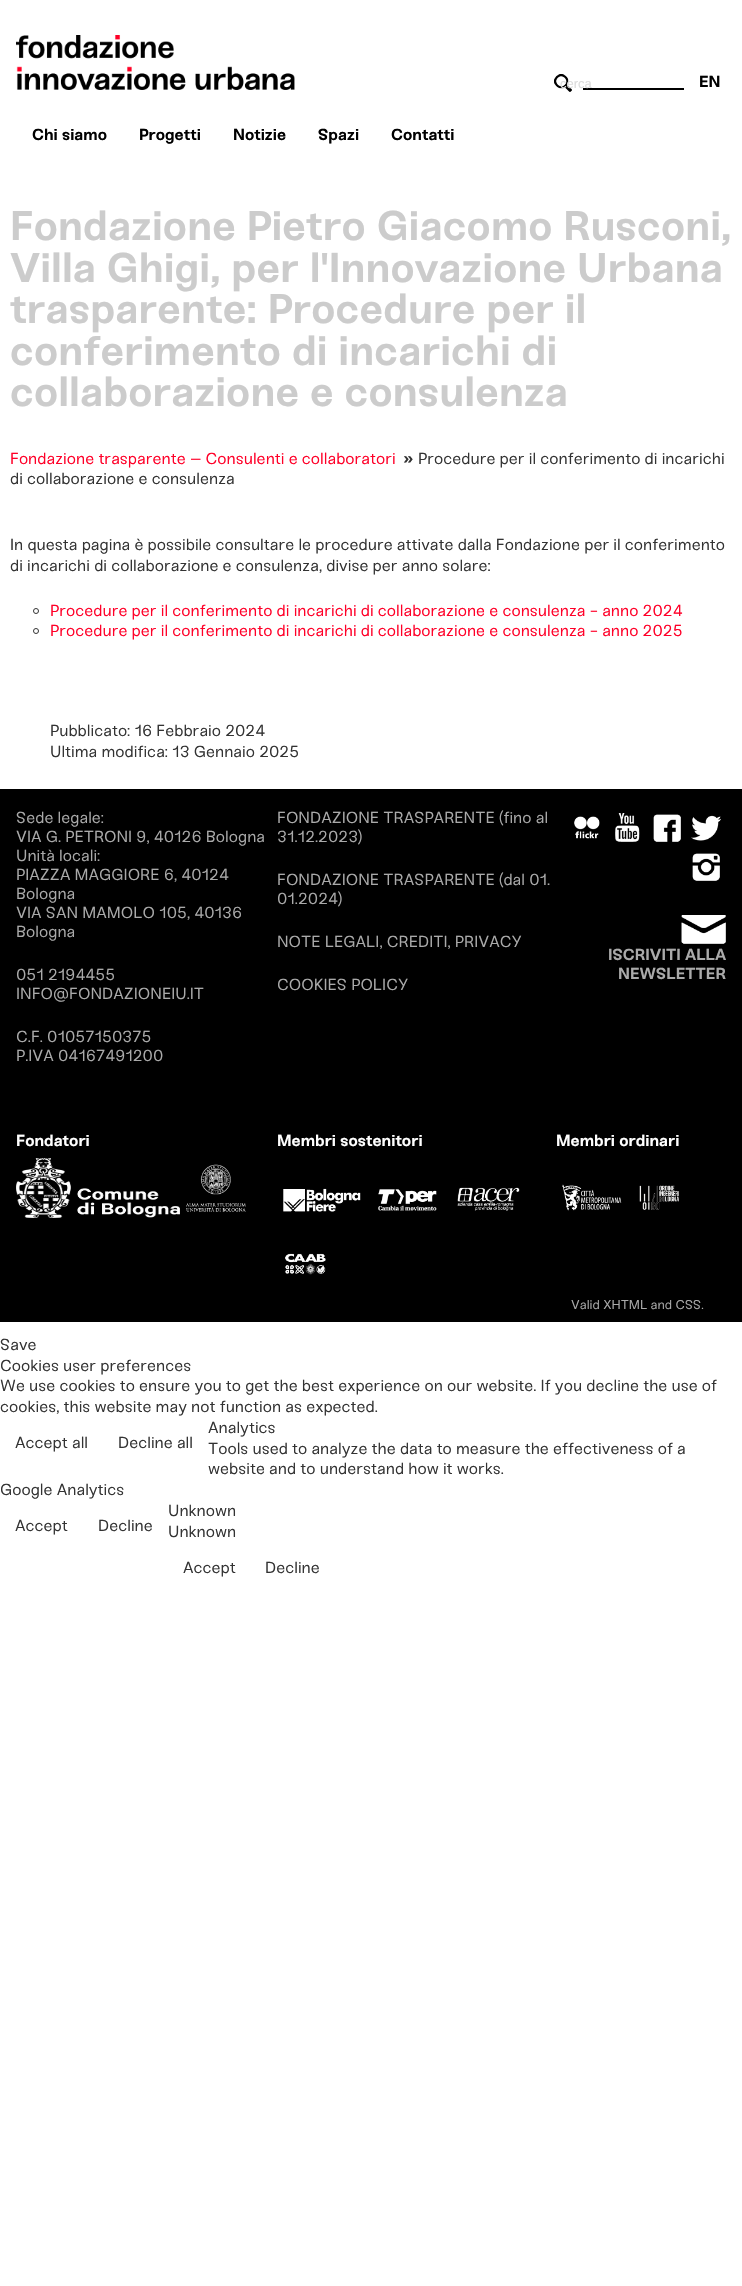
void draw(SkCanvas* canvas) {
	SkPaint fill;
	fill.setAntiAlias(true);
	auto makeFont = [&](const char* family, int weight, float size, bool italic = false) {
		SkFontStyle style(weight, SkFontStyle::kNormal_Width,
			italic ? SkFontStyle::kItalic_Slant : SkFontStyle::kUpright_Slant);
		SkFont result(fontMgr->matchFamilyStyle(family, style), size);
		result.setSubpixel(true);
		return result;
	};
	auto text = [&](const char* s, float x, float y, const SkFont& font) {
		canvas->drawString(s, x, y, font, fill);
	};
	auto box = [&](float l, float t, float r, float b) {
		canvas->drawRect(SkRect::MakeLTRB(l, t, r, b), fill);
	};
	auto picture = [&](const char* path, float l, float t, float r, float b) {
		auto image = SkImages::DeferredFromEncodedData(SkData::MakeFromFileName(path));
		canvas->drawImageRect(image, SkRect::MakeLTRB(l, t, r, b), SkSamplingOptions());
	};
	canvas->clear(0xFFFFFFFF);
	picture("image0.png", 16, 35, 295, 90);
	picture("image1.png", 554, 74, 572, 92);
	fill.setColor(0xFF000000);
	box(583, 88, 684, 90);
	fill.setStyle(SkPaint::kStroke_Style);
	fill.setStrokeWidth(1);
	fill.setColor(0xFF333333);
	canvas->drawCircle(36, 611, 2.5f, fill);
	canvas->drawCircle(36, 631, 2.5f, fill);
	fill.setStyle(SkPaint::kFill_Style);
	fill.setColor(0xFF000000);
	box(0, 789, 742, 1322);
	picture("image2.png", 574, 816, 600, 839);
	picture("image3.png", 615, 813, 640, 842);
	picture("image4.png", 653, 814, 681, 842);
	picture("image5.png", 691, 815, 721, 841);
	picture("image6.png", 692, 853, 720, 881);
	picture("image7.png", 681, 915, 726, 944);
	picture("image8.png", 16, 1158, 180, 1218);
	picture("image9.png", 186, 1164, 246, 1212);
	picture("image10.png", 283, 1188, 361, 1212);
	picture("image11.png", 378, 1189, 437, 1211);
	picture("image12.png", 457, 1187, 520, 1211);
	picture("image13.png", 285, 1253, 326, 1275);
	picture("image14.png", 562, 1184, 622, 1211);
	picture("image15.png", 639, 1185, 679, 1210);
	auto font1 = makeFont("Liberation Sans", 400, 13);
	fill.setColor(0xFFDCDCDC);
	text("cerca", 560, 88, font1);
	auto font2 = makeFont("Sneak", 700, 16);
	fill.setColor(0xFF000000);
	text("EN", 699, 87, font2);
	text("Chi siamo", 32, 140, font2);
	text("Progetti", 139, 140, font2);
	text("Notizie", 233, 140, font2);
	text("Spazi", 318, 140, font2);
	text("Contatti", 391, 140, font2);
	auto font3 = makeFont("Sneak", 700, 41.6f);
	fill.setColor(0xFFCCCCCC);
	text("Fondazione Pietro Giacomo Rusconi,", 10, 240, font3);
	text("Villa Ghigi, per l'Innovazione Urbana", 10, 282, font3);
	text("trasparente: Procedure per il", 10, 323, font3);
	text("conferimento di incarichi di", 10, 365, font3);
	text("collaborazione e consulenza", 10, 406, font3);
	auto font4 = makeFont("Sneak", 400, 16);
	fill.setColor(0xFFFF0028);
	text("Fondazione trasparente – Consulenti e collaboratori", 10, 464, font4);
	fill.setColor(0xFF333333);
	text("»", 403, 464, font2);
	text("Procedure per il conferimento di incarichi", 418, 464, font4);
	text("di collaborazione e consulenza", 10, 484, font4);
	text("In questa pagina è possibile consultare le procedure attivate dalla Fondazione per il conferimento", 10, 550, font4);
	text("di incarichi di collaborazione e consulenza, divise per anno solare:", 10, 571, font4);
	fill.setColor(0xFFFF0028);
	text("Procedure per il conferimento di incarichi di collaborazione e consulenza - anno 2024", 50, 616, font4);
	text("Procedure per il conferimento di incarichi di collaborazione e consulenza - anno 2025", 50, 636, font4);
	fill.setColor(0xFF333333);
	text("Pubblicato: 16 Febbraio 2024", 50, 736, font4);
	text("Ultima modifica: 13 Gennaio 2025", 50, 757, font4);
	fill.setColor(0xFFAAAAAA);
	text("Sede legale:", 16, 823, font4);
	text("VIA G. PETRONI 9, 40126 Bologna", 16, 842, font4);
	text("Unità locali:", 16, 861, font4);
	text("PIAZZA MAGGIORE 6, 40124", 16, 880, font4);
	text("Bologna", 16, 899, font4);
	text("VIA SAN MAMOLO 105, 40136", 16, 918, font4);
	text("Bologna", 16, 937, font4);
	text("051 2194455", 16, 980, font4);
	text("INFO@FONDAZIONEIU.IT", 16, 999, font4);
	text("C.F. 01057150375", 16, 1042, font4);
	text("P.IVA 04167491200", 16, 1061, font4);
	text("FONDAZIONE TRASPARENTE (fino al", 277, 823, font4);
	text("31.12.2023)", 277, 842, font4);
	text("FONDAZIONE TRASPARENTE (dal 01.", 277, 885, font4);
	text("01.2024)", 277, 904, font4);
	text("NOTE LEGALI, CREDITI, PRIVACY", 277, 947, font4);
	text("COOKIES POLICY", 277, 990, font4);
	text("ISCRIVITI ALLA", 608, 960, font2);
	text("NEWSLETTER", 618, 979, font2);
	fill.setColor(0xFFFFFFFF);
	text("Fondatori", 16, 1146, font2);
	text("Membri sostenitori", 277, 1146, font2);
	text("Membri ordinari", 556, 1146, font2);
	auto font5 = makeFont("Sneak", 400, 12.75f);
	fill.setColor(0xFFAAAAAA);
	text("Valid XHTML and CSS.", 571, 1309, font5);
	fill.setColor(0xFF333333);
	text("Save", 0, 1350, font4);
	text("Cookies user preferences", 0, 1371, font4);
	text("We use cookies to ensure you to get the best experience on our website. If you decline the use of", 0, 1391, font4);
	text("cookies, this website may not function as expected.", 0, 1412, font4);
	text("Analytics", 208, 1433, font4);
	text("Tools used to analyze the data to measure the effectiveness of a", 208, 1454, font4);
	text("website and to understand how it works.", 208, 1474, font4);
	text("Google Analytics", 0, 1495, font4);
	text("Accept", 15, 1531, font4);
	text("Decline", 98, 1531, font4);
	text("Accept all", 15, 1448, font4);
	text("Decline all", 118, 1448, font4);
	text("Unknown", 168, 1516, font4);
	text("Unknown", 168, 1537, font4);
	text("Accept", 183, 1573, font4);
	text("Decline", 265, 1573, font4);
}
